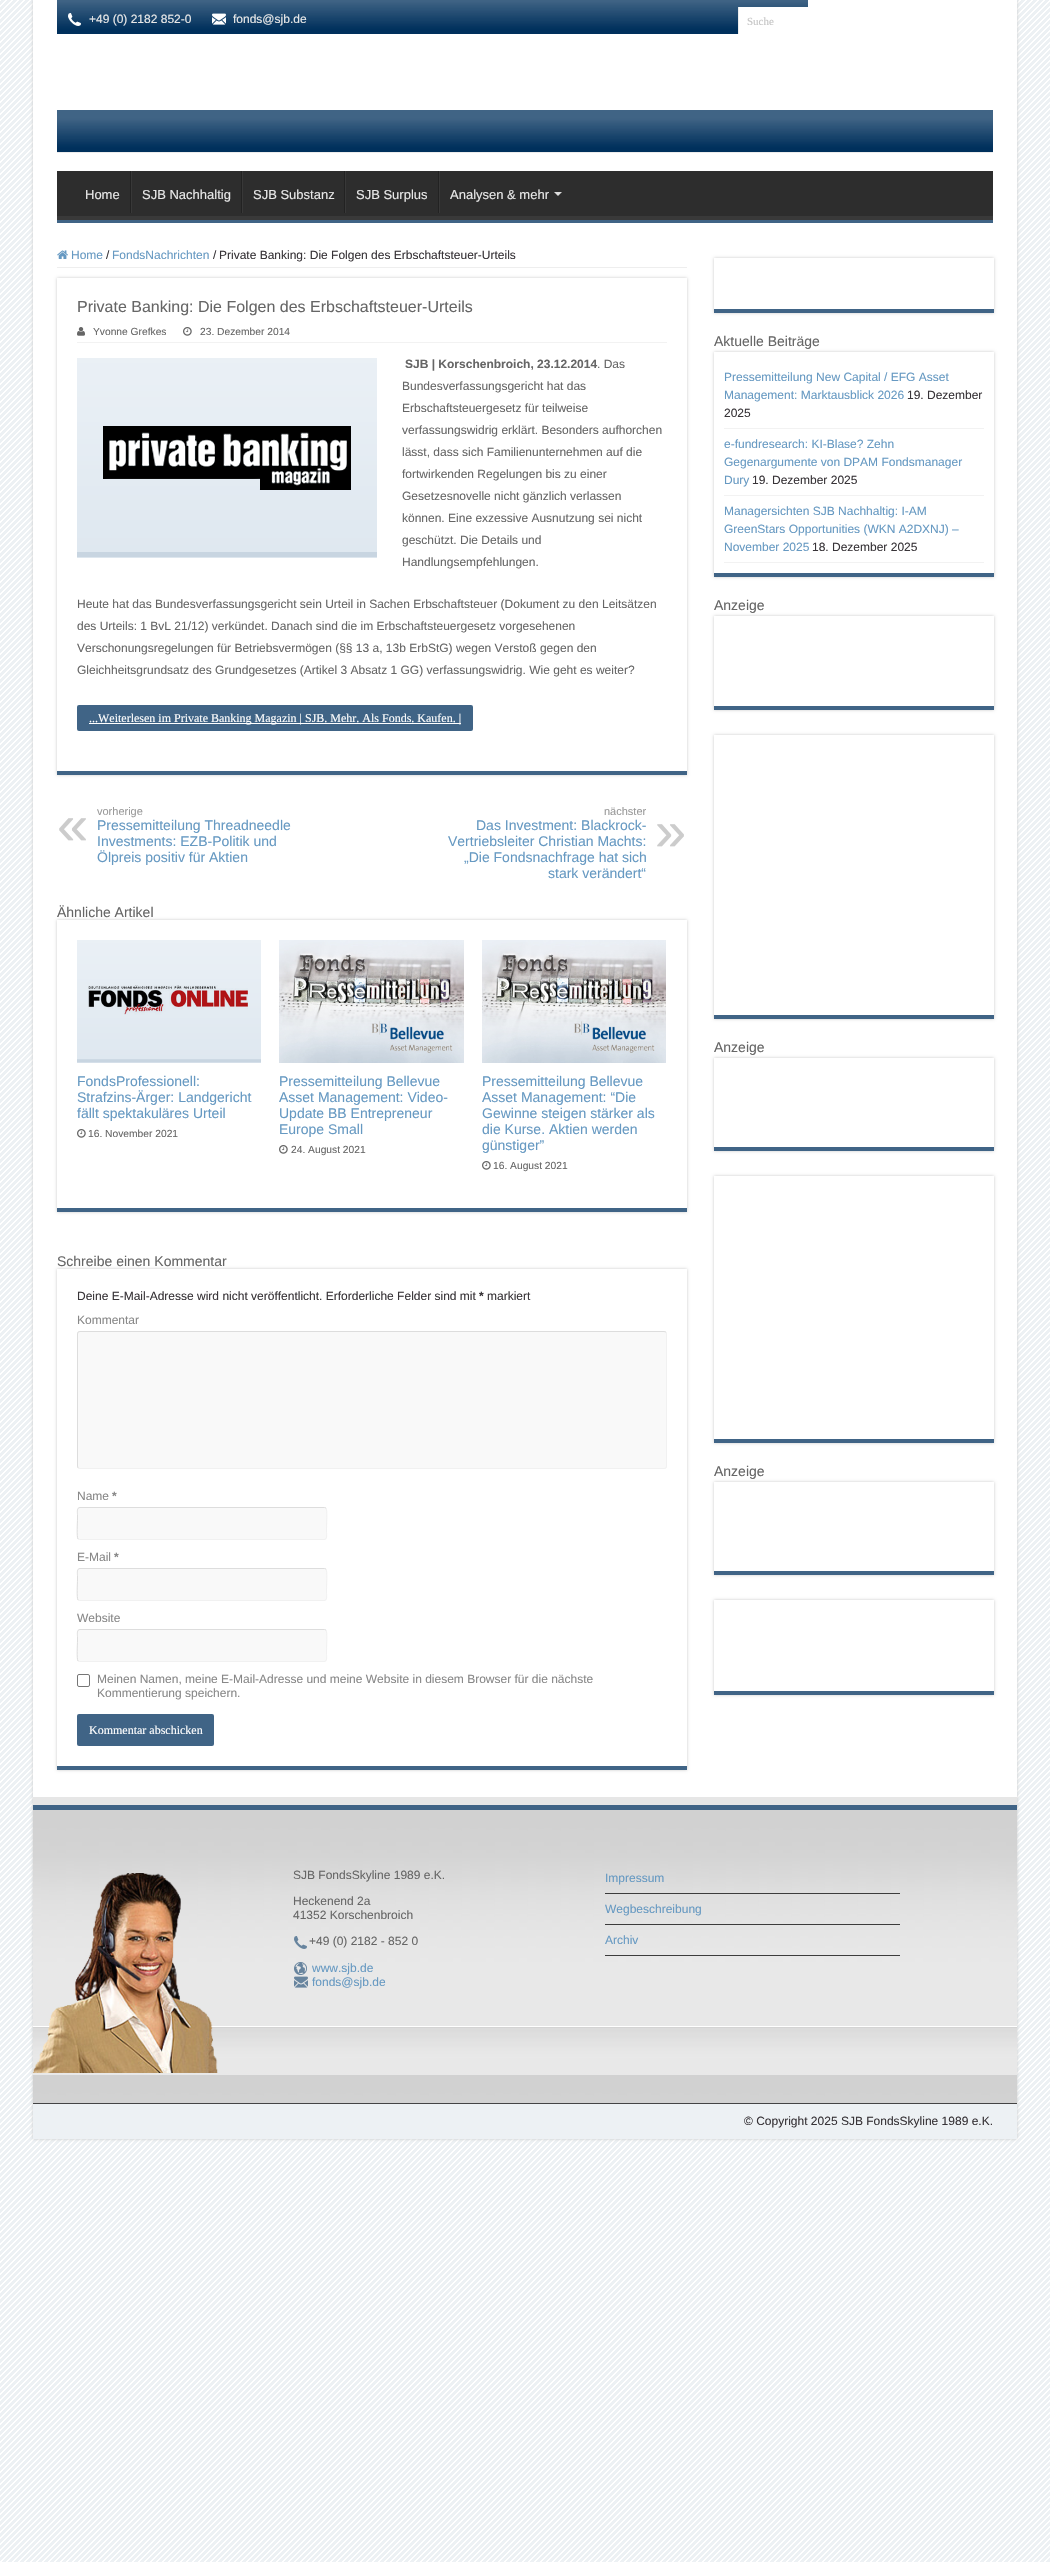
void draw(SkCanvas* canvas) {
	SkPaint fill;
	fill.setAntiAlias(true);
	auto makeFont = [&](const char* family, int weight, float size, bool italic = false) {
		SkFontStyle style(weight, SkFontStyle::kNormal_Width,
			italic ? SkFontStyle::kItalic_Slant : SkFontStyle::kUpright_Slant);
		SkFont result(fontMgr->matchFamilyStyle(family, style), size);
		result.setSubpixel(true);
		return result;
	};
	auto text = [&](const char* s, float x, float y, const SkFont& font) {
		canvas->drawString(s, x, y, font, fill);
	};
	auto box = [&](float l, float t, float r, float b) {
		canvas->drawRect(SkRect::MakeLTRB(l, t, r, b), fill);
	};
	auto roundBox = [&](float l, float t, float r, float b, float radius) {
		canvas->drawRoundRect(SkRect::MakeLTRB(l, t, r, b), radius, radius, fill);
	};
	auto picture = [&](const char* path, float l, float t, float r, float b) {
		auto image = SkImages::DeferredFromEncodedData(SkData::MakeFromFileName(path));
		canvas->drawImageRect(image, SkRect::MakeLTRB(l, t, r, b), SkSamplingOptions());
	};
	canvas->clear(0xFFFFFFFF);
	picture("image0.png", 0, 0, 1050, 2562);
	fill.setColor(0xFFCACACA);
	fill.setMaskFilter(SkMaskFilter::MakeBlur(kNormal_SkBlurStyle, 1.5f));
	canvas->drawRect(SkRect::MakeLTRB(33, 0, 1017, 2139), fill);
	fill.setMaskFilter(nullptr);
	fill.setColor(0xFFFFFFFF);
	box(33, 0, 1017, 1797);
	picture("image1.png", 57, 110, 993, 152);
	fill.setColor(0xFFECECEC);
	box(57, 152, 993, 153);
	picture("image2.png", 57, 0, 808, 34);
	picture("image3.png", 68, 13, 81, 26);
	picture("image4.png", 212, 13, 226, 25);
	fill.setColor(0xFFFFFFFF);
	box(739, 7, 808, 34);
	fill.setColor(0xFFECECEC);
	box(738, 7, 739, 34);
	fill.setColor(0xFF2D2D2D);
	box(57, 171, 993, 216);
	canvas->save();
	canvas->clipRect(SkRect::MakeLTRB(57, 171, 993, 220));
	fill.setColor(0xFF393939);
	canvas->drawPath(SkPathBuilder(SkPathFillType::kEvenOdd).moveTo(-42, 72).lineTo(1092, 72).lineTo(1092, 319).lineTo(-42, 319).close().moveTo(56, 165).lineTo(992, 165).cubicTo(993, 165, 993, 165, 993, 166).lineTo(993, 215).cubicTo(993, 216, 993, 216, 992, 216).lineTo(56, 216).cubicTo(55, 216, 55, 216, 55, 215).lineTo(55, 166).cubicTo(55, 165, 55, 165, 56, 165).close().detach(), fill);
	canvas->restore();
	fill.setColor(0xFF406486);
	box(57, 220, 993, 223);
	fill.setColor(0xFF222222);
	box(130, 171, 131, 213);
	fill.setColor(0xFF383838);
	box(131, 171, 132, 213);
	fill.setColor(0xFF222222);
	box(241, 171, 242, 213);
	fill.setColor(0xFF383838);
	box(242, 171, 243, 213);
	fill.setColor(0xFF222222);
	box(344, 171, 345, 213);
	fill.setColor(0xFF383838);
	box(345, 171, 346, 213);
	fill.setColor(0xFF222222);
	box(438, 171, 439, 213);
	fill.setColor(0xFF383838);
	box(439, 171, 440, 213);
	fill.setColor(0xFFDDDDDD);
	canvas->drawPath(SkPathBuilder().moveTo(554, 192).lineTo(562, 192).lineTo(558, 196).close().detach(), fill);
	fill.setColor(0xFFEEEEEE);
	box(57, 267, 687, 268);
	picture("image5.png", 57, 250, 68, 259);
	canvas->save();
	canvas->clipPath(SkPathBuilder(SkPathFillType::kEvenOdd).moveTo(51, 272).lineTo(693, 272).lineTo(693, 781).lineTo(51, 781).close().moveTo(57, 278).lineTo(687, 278).lineTo(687, 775).lineTo(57, 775).close().detach(), true);
	fill.setColor(0xFFCACACA);
	fill.setMaskFilter(SkMaskFilter::MakeBlur(kNormal_SkBlurStyle, 1.5f));
	canvas->drawRect(SkRect::MakeLTRB(57, 278, 687, 775), fill);
	fill.setMaskFilter(nullptr);
	canvas->restore();
	fill.setColor(0xFF406486);
	box(57, 771, 687, 775);
	fill.setColor(0xFFF2F2F2);
	box(77, 342, 667, 343);
	picture("image6.png", 77, 327, 85, 336);
	picture("image7.png", 183, 327, 192, 336);
	picture("image8.png", 77, 358, 377, 558);
	fill.setColor(0xFF406486);
	roundBox(77, 705, 473, 731, 2);
	fill.setColor(0xFFFFFFFF);
	box(89, 723, 461, 724);
	canvas->save();
	canvas->clipPath(SkPathBuilder(SkPathFillType::kEvenOdd).moveTo(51, 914).lineTo(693, 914).lineTo(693, 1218).lineTo(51, 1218).close().moveTo(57, 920).lineTo(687, 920).lineTo(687, 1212).lineTo(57, 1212).close().detach(), true);
	fill.setColor(0xFFCACACA);
	fill.setMaskFilter(SkMaskFilter::MakeBlur(kNormal_SkBlurStyle, 1.5f));
	canvas->drawRect(SkRect::MakeLTRB(57, 920, 687, 1212), fill);
	fill.setMaskFilter(nullptr);
	canvas->restore();
	fill.setColor(0xFF406486);
	box(57, 1208, 687, 1212);
	picture("image9.png", 77, 940, 261, 1063);
	picture("image7.png", 77, 1129, 86, 1138);
	picture("image10.png", 279, 940, 464, 1063);
	picture("image7.png", 279, 1145, 288, 1154);
	picture("image11.png", 482, 940, 666, 1063);
	picture("image7.png", 482, 1161, 491, 1170);
	canvas->save();
	canvas->clipPath(SkPathBuilder(SkPathFillType::kEvenOdd).moveTo(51, 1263).lineTo(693, 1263).lineTo(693, 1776).lineTo(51, 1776).close().moveTo(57, 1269).lineTo(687, 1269).lineTo(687, 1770).lineTo(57, 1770).close().detach(), true);
	fill.setColor(0xFFCACACA);
	fill.setMaskFilter(SkMaskFilter::MakeBlur(kNormal_SkBlurStyle, 1.5f));
	canvas->drawRect(SkRect::MakeLTRB(57, 1269, 687, 1770), fill);
	fill.setMaskFilter(nullptr);
	canvas->restore();
	fill.setColor(0xFF406486);
	box(57, 1766, 687, 1770);
	fill.setColor(0xFFF9F9F9);
	roundBox(77, 1331, 667, 1469, 3);
	fill.setStyle(SkPaint::kStroke_Style);
	fill.setStrokeWidth(1);
	fill.setColor(0xFFF1F1F1);
	canvas->drawPath(SkPathBuilder().moveTo(666, 1332).lineTo(666.5f, 1334).lineTo(666.5f, 1466).lineTo(666, 1468).lineTo(664, 1468.5f).lineTo(80, 1468.5f).lineTo(78, 1468).detach(), fill);
	fill.setColor(0xFFDDDDDD);
	canvas->drawPath(SkPathBuilder().moveTo(78, 1468).lineTo(77.5f, 1466).lineTo(77.5f, 1334).lineTo(78, 1332).lineTo(80, 1331.5f).lineTo(664, 1331.5f).lineTo(666, 1332).detach(), fill);
	fill.setStyle(SkPaint::kFill_Style);
	fill.setColor(0xFFF9F9F9);
	roundBox(77, 1507, 327, 1540, 3);
	fill.setStyle(SkPaint::kStroke_Style);
	fill.setColor(0xFFF1F1F1);
	canvas->drawPath(SkPathBuilder().moveTo(326, 1508).cubicTo(327.5f, 1510, 326.5f, 1525, 326.5f, 1528).lineTo(326.5f, 1532.5f).cubicTo(326.5f, 1534.5f, 327.5f, 1539.5f, 324, 1539.5f).lineTo(79.5f, 1539.5f).lineTo(78, 1539).detach(), fill);
	fill.setColor(0xFFDDDDDD);
	canvas->drawPath(SkPathBuilder().moveTo(78, 1539).cubicTo(76.5f, 1537, 77.5f, 1522, 77.5f, 1519).lineTo(77.5f, 1514.5f).cubicTo(77.5f, 1512.5f, 76.5f, 1507.5f, 80, 1507.5f).lineTo(324.5f, 1507.5f).lineTo(326, 1508).detach(), fill);
	fill.setStyle(SkPaint::kFill_Style);
	fill.setColor(0xFFF9F9F9);
	roundBox(77, 1568, 327, 1601, 3);
	fill.setStyle(SkPaint::kStroke_Style);
	fill.setColor(0xFFF1F1F1);
	canvas->drawPath(SkPathBuilder().moveTo(326, 1569).cubicTo(327.5f, 1571, 326.5f, 1586, 326.5f, 1589).lineTo(326.5f, 1593.5f).cubicTo(326.5f, 1595.5f, 327.5f, 1600.5f, 324, 1600.5f).lineTo(79.5f, 1600.5f).lineTo(78, 1600).detach(), fill);
	fill.setColor(0xFFDDDDDD);
	canvas->drawPath(SkPathBuilder().moveTo(78, 1600).cubicTo(76.5f, 1598, 77.5f, 1583, 77.5f, 1580).lineTo(77.5f, 1575.5f).cubicTo(77.5f, 1573.5f, 76.5f, 1568.5f, 80, 1568.5f).lineTo(324.5f, 1568.5f).lineTo(326, 1569).detach(), fill);
	fill.setStyle(SkPaint::kFill_Style);
	fill.setColor(0xFFF9F9F9);
	roundBox(77, 1629, 327, 1662, 3);
	fill.setStyle(SkPaint::kStroke_Style);
	fill.setColor(0xFFF1F1F1);
	canvas->drawPath(SkPathBuilder().moveTo(326, 1630).cubicTo(327.5f, 1632, 326.5f, 1647, 326.5f, 1650).lineTo(326.5f, 1654.5f).cubicTo(326.5f, 1656.5f, 327.5f, 1661.5f, 324, 1661.5f).lineTo(79.5f, 1661.5f).lineTo(78, 1661).detach(), fill);
	fill.setColor(0xFFDDDDDD);
	canvas->drawPath(SkPathBuilder().moveTo(78, 1661).cubicTo(76.5f, 1659, 77.5f, 1644, 77.5f, 1641).lineTo(77.5f, 1636.5f).cubicTo(77.5f, 1634.5f, 76.5f, 1629.5f, 80, 1629.5f).lineTo(324.5f, 1629.5f).lineTo(326, 1630).detach(), fill);
	fill.setColor(0xFF767676);
	canvas->drawRoundRect(SkRect::MakeLTRB(77.5f, 1674.5f, 89.5f, 1686.5f), 1.5f, 1.5f, fill);
	fill.setStyle(SkPaint::kFill_Style);
	fill.setColor(0xFF406486);
	roundBox(77, 1714, 214, 1746, 2);
	canvas->save();
	canvas->clipPath(SkPathBuilder(SkPathFillType::kEvenOdd).moveTo(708, 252).lineTo(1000, 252).lineTo(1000, 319).lineTo(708, 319).close().moveTo(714, 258).lineTo(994, 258).lineTo(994, 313).lineTo(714, 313).close().detach(), true);
	fill.setColor(0xFFCACACA);
	fill.setMaskFilter(SkMaskFilter::MakeBlur(kNormal_SkBlurStyle, 1.5f));
	canvas->drawRect(SkRect::MakeLTRB(714, 258, 994, 313), fill);
	fill.setMaskFilter(nullptr);
	canvas->restore();
	fill.setColor(0xFF406486);
	box(714, 309, 994, 313);
	canvas->save();
	canvas->clipPath(SkPathBuilder(SkPathFillType::kEvenOdd).moveTo(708, 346).lineTo(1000, 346).lineTo(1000, 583).lineTo(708, 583).close().moveTo(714, 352).lineTo(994, 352).lineTo(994, 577).lineTo(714, 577).close().detach(), true);
	fill.setColor(0xFFCACACA);
	fill.setMaskFilter(SkMaskFilter::MakeBlur(kNormal_SkBlurStyle, 1.5f));
	canvas->drawRect(SkRect::MakeLTRB(714, 352, 994, 577), fill);
	fill.setMaskFilter(nullptr);
	canvas->restore();
	fill.setColor(0xFF406486);
	box(714, 573, 994, 577);
	fill.setColor(0xFFF2F2F2);
	box(724, 428, 984, 429);
	box(724, 495, 984, 496);
	box(724, 562, 984, 563);
	canvas->save();
	canvas->clipPath(SkPathBuilder(SkPathFillType::kEvenOdd).moveTo(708, 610).lineTo(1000, 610).lineTo(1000, 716).lineTo(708, 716).close().moveTo(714, 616).lineTo(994, 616).lineTo(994, 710).lineTo(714, 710).close().detach(), true);
	fill.setColor(0xFFCACACA);
	fill.setMaskFilter(SkMaskFilter::MakeBlur(kNormal_SkBlurStyle, 1.5f));
	canvas->drawRect(SkRect::MakeLTRB(714, 616, 994, 710), fill);
	fill.setMaskFilter(nullptr);
	canvas->restore();
	fill.setColor(0xFF406486);
	box(714, 706, 994, 710);
	canvas->save();
	canvas->clipPath(SkPathBuilder(SkPathFillType::kEvenOdd).moveTo(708, 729).lineTo(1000, 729).lineTo(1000, 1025).lineTo(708, 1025).close().moveTo(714, 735).lineTo(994, 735).lineTo(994, 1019).lineTo(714, 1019).close().detach(), true);
	fill.setColor(0xFFCACACA);
	fill.setMaskFilter(SkMaskFilter::MakeBlur(kNormal_SkBlurStyle, 1.5f));
	canvas->drawRect(SkRect::MakeLTRB(714, 735, 994, 1019), fill);
	fill.setMaskFilter(nullptr);
	canvas->restore();
	fill.setColor(0xFF406486);
	box(714, 1015, 994, 1019);
	canvas->save();
	canvas->clipPath(SkPathBuilder(SkPathFillType::kEvenOdd).moveTo(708, 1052).lineTo(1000, 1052).lineTo(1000, 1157).lineTo(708, 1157).close().moveTo(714, 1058).lineTo(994, 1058).lineTo(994, 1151).lineTo(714, 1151).close().detach(), true);
	fill.setColor(0xFFCACACA);
	fill.setMaskFilter(SkMaskFilter::MakeBlur(kNormal_SkBlurStyle, 1.5f));
	canvas->drawRect(SkRect::MakeLTRB(714, 1058, 994, 1151), fill);
	fill.setMaskFilter(nullptr);
	canvas->restore();
	fill.setColor(0xFF406486);
	box(714, 1147, 994, 1151);
	canvas->save();
	canvas->clipPath(SkPathBuilder(SkPathFillType::kEvenOdd).moveTo(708, 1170).lineTo(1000, 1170).lineTo(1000, 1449).lineTo(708, 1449).close().moveTo(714, 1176).lineTo(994, 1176).lineTo(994, 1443).lineTo(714, 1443).close().detach(), true);
	fill.setColor(0xFFCACACA);
	fill.setMaskFilter(SkMaskFilter::MakeBlur(kNormal_SkBlurStyle, 1.5f));
	canvas->drawRect(SkRect::MakeLTRB(714, 1176, 994, 1443), fill);
	fill.setMaskFilter(nullptr);
	canvas->restore();
	fill.setColor(0xFF406486);
	box(714, 1439, 994, 1443);
	canvas->save();
	canvas->clipPath(SkPathBuilder(SkPathFillType::kEvenOdd).moveTo(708, 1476).lineTo(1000, 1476).lineTo(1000, 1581).lineTo(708, 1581).close().moveTo(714, 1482).lineTo(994, 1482).lineTo(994, 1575).lineTo(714, 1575).close().detach(), true);
	fill.setColor(0xFFCACACA);
	fill.setMaskFilter(SkMaskFilter::MakeBlur(kNormal_SkBlurStyle, 1.5f));
	canvas->drawRect(SkRect::MakeLTRB(714, 1482, 994, 1575), fill);
	fill.setMaskFilter(nullptr);
	canvas->restore();
	fill.setColor(0xFF406486);
	box(714, 1571, 994, 1575);
	canvas->save();
	canvas->clipPath(SkPathBuilder(SkPathFillType::kEvenOdd).moveTo(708, 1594).lineTo(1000, 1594).lineTo(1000, 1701).lineTo(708, 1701).close().moveTo(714, 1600).lineTo(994, 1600).lineTo(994, 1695).lineTo(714, 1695).close().detach(), true);
	fill.setColor(0xFFCACACA);
	fill.setMaskFilter(SkMaskFilter::MakeBlur(kNormal_SkBlurStyle, 1.5f));
	canvas->drawRect(SkRect::MakeLTRB(714, 1600, 994, 1695), fill);
	fill.setMaskFilter(nullptr);
	canvas->restore();
	fill.setColor(0xFF406486);
	box(714, 1691, 994, 1695);
	fill.setColor(0xFFE6E6E6);
	box(33, 1797, 1017, 1805);
	picture("image12.png", 33, 1810, 1017, 2103);
	fill.setColor(0xFF406486);
	box(33, 1805, 1017, 1810);
	picture("image13.png", 33, 1873, 218, 2073);
	picture("image14.png", 294, 1936, 307, 1949);
	picture("image15.png", 294, 1962, 307, 1975);
	picture("image16.png", 294, 1976, 308, 1988);
	fill.setColor(0xFF3C3C3C);
	box(605, 1893, 900, 1894);
	box(605, 1924, 900, 1925);
	box(605, 1955, 900, 1956);
	fill.setColor(0xFF444444);
	box(33, 2103, 1017, 2104);
	fill.setColor(0xFFEDF1F4);
	box(33, 2104, 1017, 2139);
	auto font1 = makeFont("Liberation Sans", 400, 12);
	fill.setColor(0xFFE8E8E8);
	text("+49 (0) 2182 852-0", 89, 23, font1);
	text("fonds@sjb.de", 233, 23, font1);
	auto font2 = makeFont("Liberation Serif", 400, 11);
	fill.setColor(0xFFC5C5C5);
	text("Suche", 747, 25, font2);
	auto font3 = makeFont("Liberation Sans", 400, 13);
	fill.setColor(0xFFE8E8E8);
	text("Home", 85, 199, font3);
	text("SJB Nachhaltig", 142, 199, font3);
	text("SJB Substanz", 253, 199, font3);
	text("SJB Surplus", 356, 199, font3);
	text("Analysen & mehr", 450, 199, font3);
	fill.setColor(0xFF6699C2);
	text("Home", 71, 259, font1);
	fill.setColor(0xFF383438);
	text("/", 106, 259, font1);
	fill.setColor(0xFF6699C2);
	text("FondsNachrichten", 112, 259, font1);
	fill.setColor(0xFF383438);
	text("/", 213, 259, font1);
	text("Private Banking: Die Folgen des Erbschaftsteuer-Urteils", 219, 259, font1);
	auto font4 = makeFont("Liberation Sans", 400, 16);
	fill.setColor(0xFF666666);
	text("Private Banking: Die Folgen des Erbschaftsteuer-Urteils", 77, 312, font4);
	auto font5 = makeFont("Liberation Sans", 400, 10.25f);
	text("Yvonne Grefkes", 93, 335, font5);
	text("23. Dezember 2014", 200, 335, font5);
	auto font6 = makeFont("Liberation Sans", 700, 12);
	text("SJB | Korschenbroich, 23.12.2014", 405, 368, font6);
	text(". Das", 597, 368, font1);
	text("Bundesverfassungsgericht hat das", 402, 390, font1);
	text("Erbschaftsteuergesetz für teilweise", 402, 412, font1);
	text("verfassungswidrig erklärt. Besonders aufhorchen", 402, 434, font1);
	text("lässt, dass sich Familienunternehmen auf die", 402, 456, font1);
	text("fortwirkenden Regelungen bis zu einer", 402, 478, font1);
	text("Gesetzesnovelle nicht gänzlich verlassen", 402, 500, font1);
	text("können. Eine exzessive Ausnutzung sei nicht", 402, 522, font1);
	text("geschützt. Die Details und", 402, 544, font1);
	text("Handlungsempfehlungen.", 402, 566, font1);
	text("Heute hat das Bundesverfassungsgericht sein Urteil in Sachen Erbschaftsteuer (Dokument zu den Leitsätzen", 77, 608, font1);
	text("des Urteils: 1 BvL 21/12) verkündet. Danach sind die im Erbschaftsteuergesetz vorgesehenen", 77, 630, font1);
	text("Verschonungsregelungen für Betriebsvermögen (§§ 13 a, 13b ErbStG) wegen Verstoß gegen den", 77, 652, font1);
	text("Gleichheitsgrundsatz des Grundgesetzes (Artikel 3 Absatz 1 GG) verfassungswidrig. Wie geht es weiter?", 77, 674, font1);
	auto font7 = makeFont("Liberation Serif", 400, 12);
	fill.setColor(0xFFFFFFFF);
	text("...Weiterlesen im Private Banking Magazin | SJB. Mehr. Als Fonds. Kaufen. |", 89, 722, font7);
	auto font8 = makeFont("Liberation Sans", 400, 11);
	fill.setColor(0xFF999999);
	text("vorherige", 97, 815, font8);
	auto font9 = makeFont("Liberation Sans", 400, 56);
	fill.setColor(0xFFCCCCCC);
	text("«", 57, 844, font9);
	auto font10 = makeFont("Liberation Sans", 400, 14);
	fill.setColor(0xFF6699C2);
	text("Pressemitteilung Threadneedle", 97, 830, font10);
	text("Investments: EZB-Politik und", 97, 846, font10);
	text("Ölpreis positiv für Aktien", 97, 862, font10);
	fill.setColor(0xFF999999);
	text("nächster", 604, 815, font8);
	fill.setColor(0xFF6699C2);
	text("Das Investment: Blackrock-", 476, 830, font10);
	fill.setColor(0xFFCCCCCC);
	text("»", 655, 850, font9);
	fill.setColor(0xFF6699C2);
	text("Vertriebsleiter Christian Machts:", 448, 846, font10);
	text("„Die Fondsnachfrage hat sich", 464, 862, font10);
	text("stark verändert“", 548, 878, font10);
	fill.setColor(0xFF666666);
	text("Ähnliche Artikel", 57, 917, font10);
	fill.setColor(0xFF6699C2);
	text("FondsProfessionell:", 77, 1086, font10);
	text("Strafzins-Ärger: Landgericht", 77, 1102, font10);
	text("fällt spektakuläres Urteil", 77, 1118, font10);
	fill.setColor(0xFF666666);
	text("16. November 2021", 88, 1137, font5);
	fill.setColor(0xFF6699C2);
	text("Pressemitteilung Bellevue", 279, 1086, font10);
	text("Asset Management: Video-", 279, 1102, font10);
	text("Update BB Entrepreneur", 279, 1118, font10);
	text("Europe Small", 279, 1134, font10);
	fill.setColor(0xFF666666);
	text("24. August 2021", 291, 1153, font5);
	fill.setColor(0xFF6699C2);
	text("Pressemitteilung Bellevue", 482, 1086, font10);
	text("Asset Management: “Die", 482, 1102, font10);
	text("Gewinne steigen stärker als", 482, 1118, font10);
	text("die Kurse. Aktien werden", 482, 1134, font10);
	text("günstiger”", 482, 1150, font10);
	fill.setColor(0xFF666666);
	text("16. August 2021", 493, 1169, font5);
	text("Schreibe einen Kommentar", 57, 1266, font10);
	fill.setColor(0xFF383438);
	text("Deine E-Mail-Adresse wird nicht veröffentlicht. Erforderliche Felder sind mit", 77, 1300, font1);
	text("*", 479, 1300, font6);
	text("markiert", 487, 1300, font1);
	fill.setColor(0xFF888888);
	text("Kommentar", 77, 1324, font1);
	text("Name", 77, 1500, font1);
	text("*", 112, 1500, font6);
	text("E-Mail", 77, 1561, font1);
	text("*", 114, 1561, font6);
	text("Website", 77, 1622, font1);
	text("Meinen Namen, meine E-Mail-Adresse und meine Website in diesem Browser für die nächste", 97, 1683, font1);
	text("Kommentierung speichern.", 97, 1697, font1);
	fill.setColor(0xFFFFFFFF);
	text("Kommentar abschicken", 89, 1734, font7);
	fill.setColor(0xFF666666);
	text("Aktuelle Beiträge", 714, 346, font10);
	fill.setColor(0xFF6699C2);
	text("Pressemitteilung New Capital / EFG Asset", 724, 381, font1);
	text("Management: Marktausblick 2026", 724, 399, font1);
	fill.setColor(0xFF383438);
	text("19. Dezember", 907, 399, font1);
	text("2025", 724, 417, font1);
	fill.setColor(0xFF6699C2);
	text("e-fundresearch: KI-Blase? Zehn", 724, 448, font1);
	text("Gegenargumente von DPAM Fondsmanager", 724, 466, font1);
	text("Dury", 724, 484, font1);
	fill.setColor(0xFF383438);
	text("19. Dezember 2025", 752, 484, font1);
	fill.setColor(0xFF6699C2);
	text("Managersichten SJB Nachhaltig: I-AM", 724, 515, font1);
	text("GreenStars Opportunities (WKN A2DXNJ) –", 724, 533, font1);
	text("November 2025", 724, 551, font1);
	fill.setColor(0xFF383438);
	text("18. Dezember 2025", 812, 551, font1);
	fill.setColor(0xFF666666);
	text("Anzeige", 714, 610, font10);
	text("Anzeige", 714, 1052, font10);
	text("Anzeige", 714, 1476, font10);
	text("SJB FondsSkyline 1989 e.K.", 293, 1879, font1);
	text("Heckenend 2a", 293, 1905, font1);
	text("41352 Korschenbroich", 293, 1919, font1);
	text("+49 (0) 2182 - 852 0", 309, 1945, font1);
	fill.setColor(0xFF6699C2);
	text("www.sjb.de", 312, 1972, font1);
	text("fonds@sjb.de", 312, 1986, font1);
	text("Impressum", 605, 1882, font1);
	text("Wegbeschreibung", 605, 1913, font1);
	text("Archiv", 605, 1944, font1);
	fill.setColor(0xFF383438);
	text("© Copyright 2025 SJB FondsSkyline 1989 e.K.", 744, 2125, font1);
}
